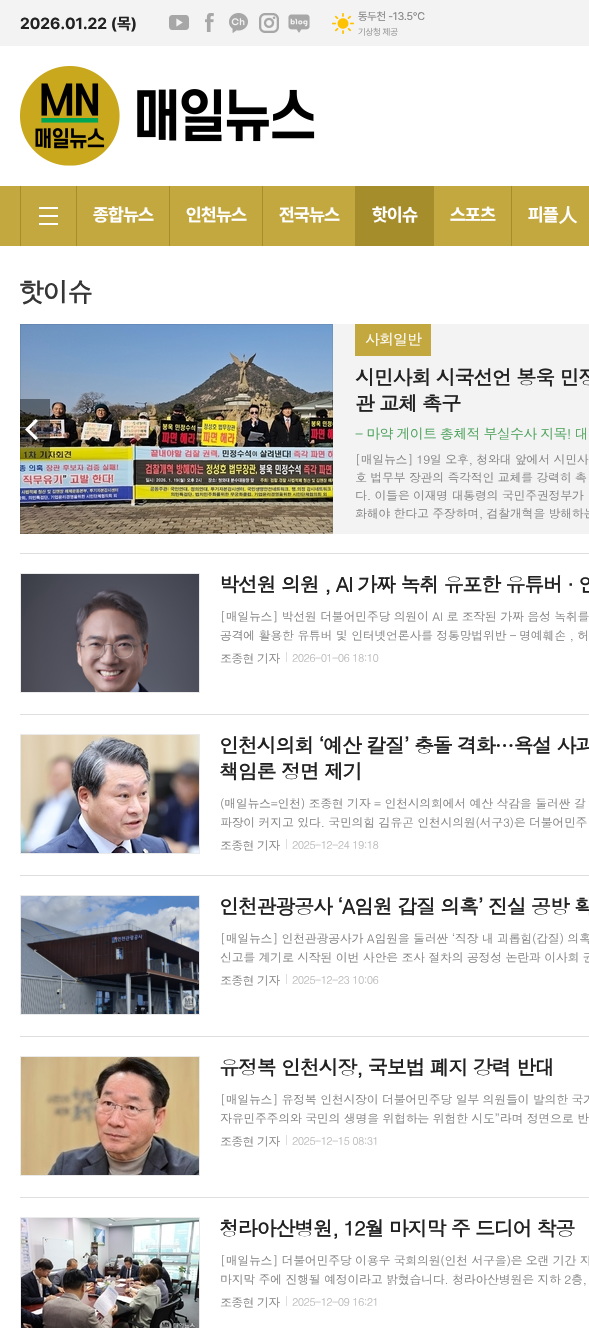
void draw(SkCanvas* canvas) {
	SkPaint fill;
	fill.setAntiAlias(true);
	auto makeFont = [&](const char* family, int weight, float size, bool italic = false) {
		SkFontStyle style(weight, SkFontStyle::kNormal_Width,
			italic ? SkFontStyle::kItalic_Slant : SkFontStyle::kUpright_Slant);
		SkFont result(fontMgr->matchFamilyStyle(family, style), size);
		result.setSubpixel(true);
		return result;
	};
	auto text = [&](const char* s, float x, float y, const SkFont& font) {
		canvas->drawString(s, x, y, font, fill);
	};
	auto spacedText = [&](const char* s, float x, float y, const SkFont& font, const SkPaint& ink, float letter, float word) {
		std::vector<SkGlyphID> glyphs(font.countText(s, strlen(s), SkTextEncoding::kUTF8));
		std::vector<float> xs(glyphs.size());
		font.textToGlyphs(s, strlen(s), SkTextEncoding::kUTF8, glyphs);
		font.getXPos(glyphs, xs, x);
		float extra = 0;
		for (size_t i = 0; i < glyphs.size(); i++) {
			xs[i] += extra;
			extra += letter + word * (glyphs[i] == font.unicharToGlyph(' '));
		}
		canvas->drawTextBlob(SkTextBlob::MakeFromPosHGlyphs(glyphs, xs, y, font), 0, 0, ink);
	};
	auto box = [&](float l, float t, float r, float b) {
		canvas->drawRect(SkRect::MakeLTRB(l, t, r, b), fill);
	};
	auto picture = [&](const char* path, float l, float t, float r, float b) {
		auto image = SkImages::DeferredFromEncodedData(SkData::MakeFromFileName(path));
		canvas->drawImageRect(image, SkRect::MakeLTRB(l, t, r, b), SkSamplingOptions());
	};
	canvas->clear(0xFFFFFFFF);
	fill.setColor(0xFFF3F3F3);
	box(0, 0, 589, 46);
	picture("image0.png", 169, 15, 189, 30);
	picture("image1.png", 205, 13, 214, 32);
	picture("image2.png", 229, 13, 248, 33);
	picture("image3.png", 259, 13, 279, 33);
	picture("image4.png", 288, 14, 310, 33);
	picture("image5.png", 332, 13, 354, 34);
	picture("image6.png", 20, 66, 315, 166);
	fill.setColor(0xFFC3A83F);
	box(0, 186, 589, 246);
	fill.setColor(0xFFA68D2B);
	box(20, 186, 21, 246);
	box(76, 186, 77, 246);
	fill.setColor(0xFFFFFFFF);
	box(39, 215, 58, 217);
	box(39, 207, 58, 209);
	box(39, 223, 58, 225);
	fill.setColor(0xFFA68D2B);
	box(169, 186, 170, 246);
	box(262, 186, 263, 246);
	box(355, 186, 356, 246);
	box(356, 186, 434, 246);
	box(511, 186, 512, 246);
	picture("image8.png", 20, 324, 333, 534);
	fill.setStyle(SkPaint::kStroke_Style);
	fill.setStrokeWidth(1);
	fill.setColor(0x12000000);
	canvas->drawRect(SkRect::MakeLTRB(20.5f, 324.5f, 332.5f, 533.5f), fill);
	picture("image7.png", 20, 399, 50, 459);
	fill.setStyle(SkPaint::kFill_Style);
	fill.setColor(0xFFF3F3F3);
	box(333, 324, 589, 534);
	fill.setColor(0xFFC3A83F);
	box(355, 324, 431, 356);
	fill.setColor(0xFFDEDEDE);
	box(20, 553, 589, 554);
	box(20, 714, 589, 715);
	fill.setStyle(SkPaint::kStroke_Style);
	fill.setColor(0xFFEAEAEA);
	canvas->drawRect(SkRect::MakeLTRB(20.5f, 573.5f, 199.5f, 692.5f), fill);
	picture("image9.png", 21, 574, 199, 692);
	fill.setStyle(SkPaint::kFill_Style);
	fill.setColor(0xFFDEDEDE);
	box(286, 652, 287, 662);
	box(20, 875, 589, 876);
	fill.setStyle(SkPaint::kStroke_Style);
	fill.setColor(0xFFEAEAEA);
	canvas->drawRect(SkRect::MakeLTRB(20.5f, 734.5f, 199.5f, 853.5f), fill);
	picture("image10.png", 21, 735, 199, 853);
	fill.setStyle(SkPaint::kFill_Style);
	fill.setColor(0xFFDEDEDE);
	box(286, 839, 287, 849);
	box(20, 1036, 589, 1037);
	fill.setStyle(SkPaint::kStroke_Style);
	fill.setColor(0xFFEAEAEA);
	canvas->drawRect(SkRect::MakeLTRB(20.5f, 895.5f, 199.5f, 1014.5f), fill);
	picture("image11.png", 21, 896, 199, 1014);
	fill.setStyle(SkPaint::kFill_Style);
	fill.setColor(0xFFDEDEDE);
	box(286, 974, 287, 984);
	box(20, 1197, 589, 1198);
	fill.setStyle(SkPaint::kStroke_Style);
	fill.setColor(0xFFEAEAEA);
	canvas->drawRect(SkRect::MakeLTRB(20.5f, 1056.5f, 199.5f, 1175.5f), fill);
	picture("image12.png", 21, 1057, 199, 1175);
	fill.setStyle(SkPaint::kFill_Style);
	fill.setColor(0xFFDEDEDE);
	box(286, 1135, 287, 1145);
	fill.setStyle(SkPaint::kStroke_Style);
	fill.setColor(0xFFEAEAEA);
	canvas->drawRect(SkRect::MakeLTRB(20.5f, 1217.5f, 199.5f, 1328.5f), fill);
	picture("image13.png", 21, 1218, 199, 1328);
	fill.setStyle(SkPaint::kFill_Style);
	fill.setColor(0xFFDEDEDE);
	box(286, 1296, 287, 1306);
	auto font1 = makeFont("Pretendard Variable", 700, 16);
	fill.setColor(0xFF222222);
	text("2026.01.22 (목)", 20, 29, font1);
	auto font2 = makeFont("Pretendard Variable", 400, 11);
	fill.setColor(0xFF848484);
	spacedText("동두천 -13.5℃", 358, 20, font2, fill, -0.25f, 0);
	auto font3 = makeFont("Pretendard Variable", 400, 9);
	fill.setColor(0xFF999999);
	spacedText("기상청 제공", 358, 35, font3, fill, -0.25f, 0);
	auto font4 = makeFont("Pretendard Variable", 700, 18);
	fill.setColor(0xFFFFFFFF);
	spacedText("종합뉴스", 93, 221, font4, fill, -0.5f, 0);
	spacedText("인천뉴스", 186, 221, font4, fill, -0.5f, 0);
	spacedText("전국뉴스", 279, 221, font4, fill, -0.5f, 0);
	spacedText("핫이슈", 372, 221, font4, fill, -0.5f, 0);
	spacedText("스포츠", 450, 221, font4, fill, -0.5f, 0);
	spacedText("피플", 528, 221, font4, fill, -0.5f, 0);
	auto font5 = makeFont("WenQuanYi Zen Hei", 700, 18);
	spacedText("人", 559, 221, font5, fill, -0.5f, 0);
	auto font6 = makeFont("Dotum", 700, 26);
	fill.setColor(0xFF363636);
	spacedText("핫이슈", 18, 302, font6, fill, -1.5f, 0);
	auto font7 = makeFont("Dotum", 400, 15);
	fill.setColor(0xFFFFFFFF);
	spacedText("사회일반", 365, 345, font7, fill, -1, 0);
	auto font8 = makeFont("Dotum", 700, 20);
	fill.setColor(0xFF222222);
	spacedText("시민사회 시국선언 봉욱 민정", 355, 385, font8, fill, -1.2f, 0);
	spacedText("관 교체 촉구", 355, 411, font8, fill, -1.2f, 0);
	auto font9 = makeFont("Dotum", 400, 14);
	fill.setColor(0xFF4EA35D);
	spacedText("- 마약 게이트 총체적 부실수사 지목! 대", 355, 439, font9, fill, -0.8f, 0);
	auto font10 = makeFont("Dotum", 400, 12);
	fill.setColor(0xFF848484);
	spacedText("[매일뉴스] 19일 오후, 청와대 앞에서 시민사", 355, 464, font10, fill, -0.35f, 0);
	spacedText("호 법무부 장관의 즉각적인 교체를 강력히 촉", 355, 482, font10, fill, -0.35f, 0);
	spacedText("다. 이들은 이재명 대통령의 국민주권정부가", 355, 500, font10, fill, -0.35f, 0);
	spacedText("화해야 한다고 주장하며, 검찰개혁을 방해하는", 355, 518, font10, fill, -0.35f, 0);
	fill.setColor(0xFF222222);
	spacedText("박선원 의원 , AI 가짜 녹취 유포한 유튜버 · 인", 219, 592, font8, fill, -1.2f, 0);
	fill.setColor(0xFF848484);
	spacedText("[매일뉴스] 박선원 더불어민주당 의원이 AI 로 조작된 가짜 음성 녹취를", 220, 621, font10, fill, -0.35f, 0);
	spacedText("공격에 활용한 유튜버 및 인터넷언론사를 정통망법위반 – 명예훼손 , 허", 220, 640, font10, fill, -0.35f, 0);
	spacedText("조종현 기자", 220, 663, font10, fill, -0.75f, 0);
	auto font11 = makeFont("Dotum", 400, 11);
	fill.setColor(0xFFBBBBBB);
	spacedText("2026-01-06 18:10", 292, 662, font11, fill, -0.7f, 0);
	fill.setColor(0xFF222222);
	spacedText("인천시의회 ‘예산 칼질’ 충돌 격화…욕설 사과", 219, 753, font8, fill, -1.2f, 0);
	spacedText("책임론 정면 제기", 219, 779, font8, fill, -1.2f, 0);
	fill.setColor(0xFF848484);
	spacedText("(매일뉴스=인천) 조종현 기자 = 인천시의회에서 예산 삭감을 둘러싼 갈", 220, 808, font10, fill, -0.35f, 0);
	spacedText("파장이 커지고 있다. 국민의힘 김유곤 인천시의원(서구3)은 더불어민주", 220, 827, font10, fill, -0.35f, 0);
	spacedText("조종현 기자", 220, 850, font10, fill, -0.75f, 0);
	fill.setColor(0xFFBBBBBB);
	spacedText("2025-12-24 19:18", 292, 849, font11, fill, -0.7f, 0);
	fill.setColor(0xFF222222);
	spacedText("인천관광공사 ‘A임원 갑질 의혹’ 진실 공방 확", 219, 914, font8, fill, -1.2f, 0);
	fill.setColor(0xFF848484);
	spacedText("[매일뉴스] 인천관광공사가 A임원을 둘러싼 ‘직장 내 괴롭힘(갑질) 의혹", 220, 943, font10, fill, -0.35f, 0);
	spacedText("신고를 계기로 시작된 이번 사안은 조사 절차의 공정성 논란과 이사회 권", 220, 962, font10, fill, -0.35f, 0);
	spacedText("조종현 기자", 220, 985, font10, fill, -0.75f, 0);
	fill.setColor(0xFFBBBBBB);
	spacedText("2025-12-23 10:06", 292, 984, font11, fill, -0.7f, 0);
	fill.setColor(0xFF222222);
	spacedText("유정복 인천시장, 국보법 폐지 강력 반대", 219, 1075, font8, fill, -1.2f, 0);
	fill.setColor(0xFF848484);
	spacedText("[매일뉴스] 유정복 인천시장이 더불어민주당 일부 의원들이 발의한 국가", 220, 1104, font10, fill, -0.35f, 0);
	spacedText("자유민주주의와 국민의 생명을 위협하는 위험한 시도”라며 정면으로 반", 220, 1123, font10, fill, -0.35f, 0);
	spacedText("조종현 기자", 220, 1146, font10, fill, -0.75f, 0);
	fill.setColor(0xFFBBBBBB);
	spacedText("2025-12-15 08:31", 292, 1145, font11, fill, -0.7f, 0);
	fill.setColor(0xFF222222);
	spacedText("청라아산병원, 12월 마지막 주 드디어 착공", 219, 1236, font8, fill, -1.2f, 0);
	fill.setColor(0xFF848484);
	spacedText("[매일뉴스] 더불어민주당 이용우 국회의원(인천 서구을)은 오랜 기간 지", 220, 1265, font10, fill, -0.35f, 0);
	spacedText("마지막 주에 진행될 예정이라고 밝혔습니다. 청라아산병원은 지하 2층,", 220, 1284, font10, fill, -0.35f, 0);
	spacedText("조종현 기자", 220, 1307, font10, fill, -0.75f, 0);
	fill.setColor(0xFFBBBBBB);
	spacedText("2025-12-09 16:21", 292, 1306, font11, fill, -0.7f, 0);
}
